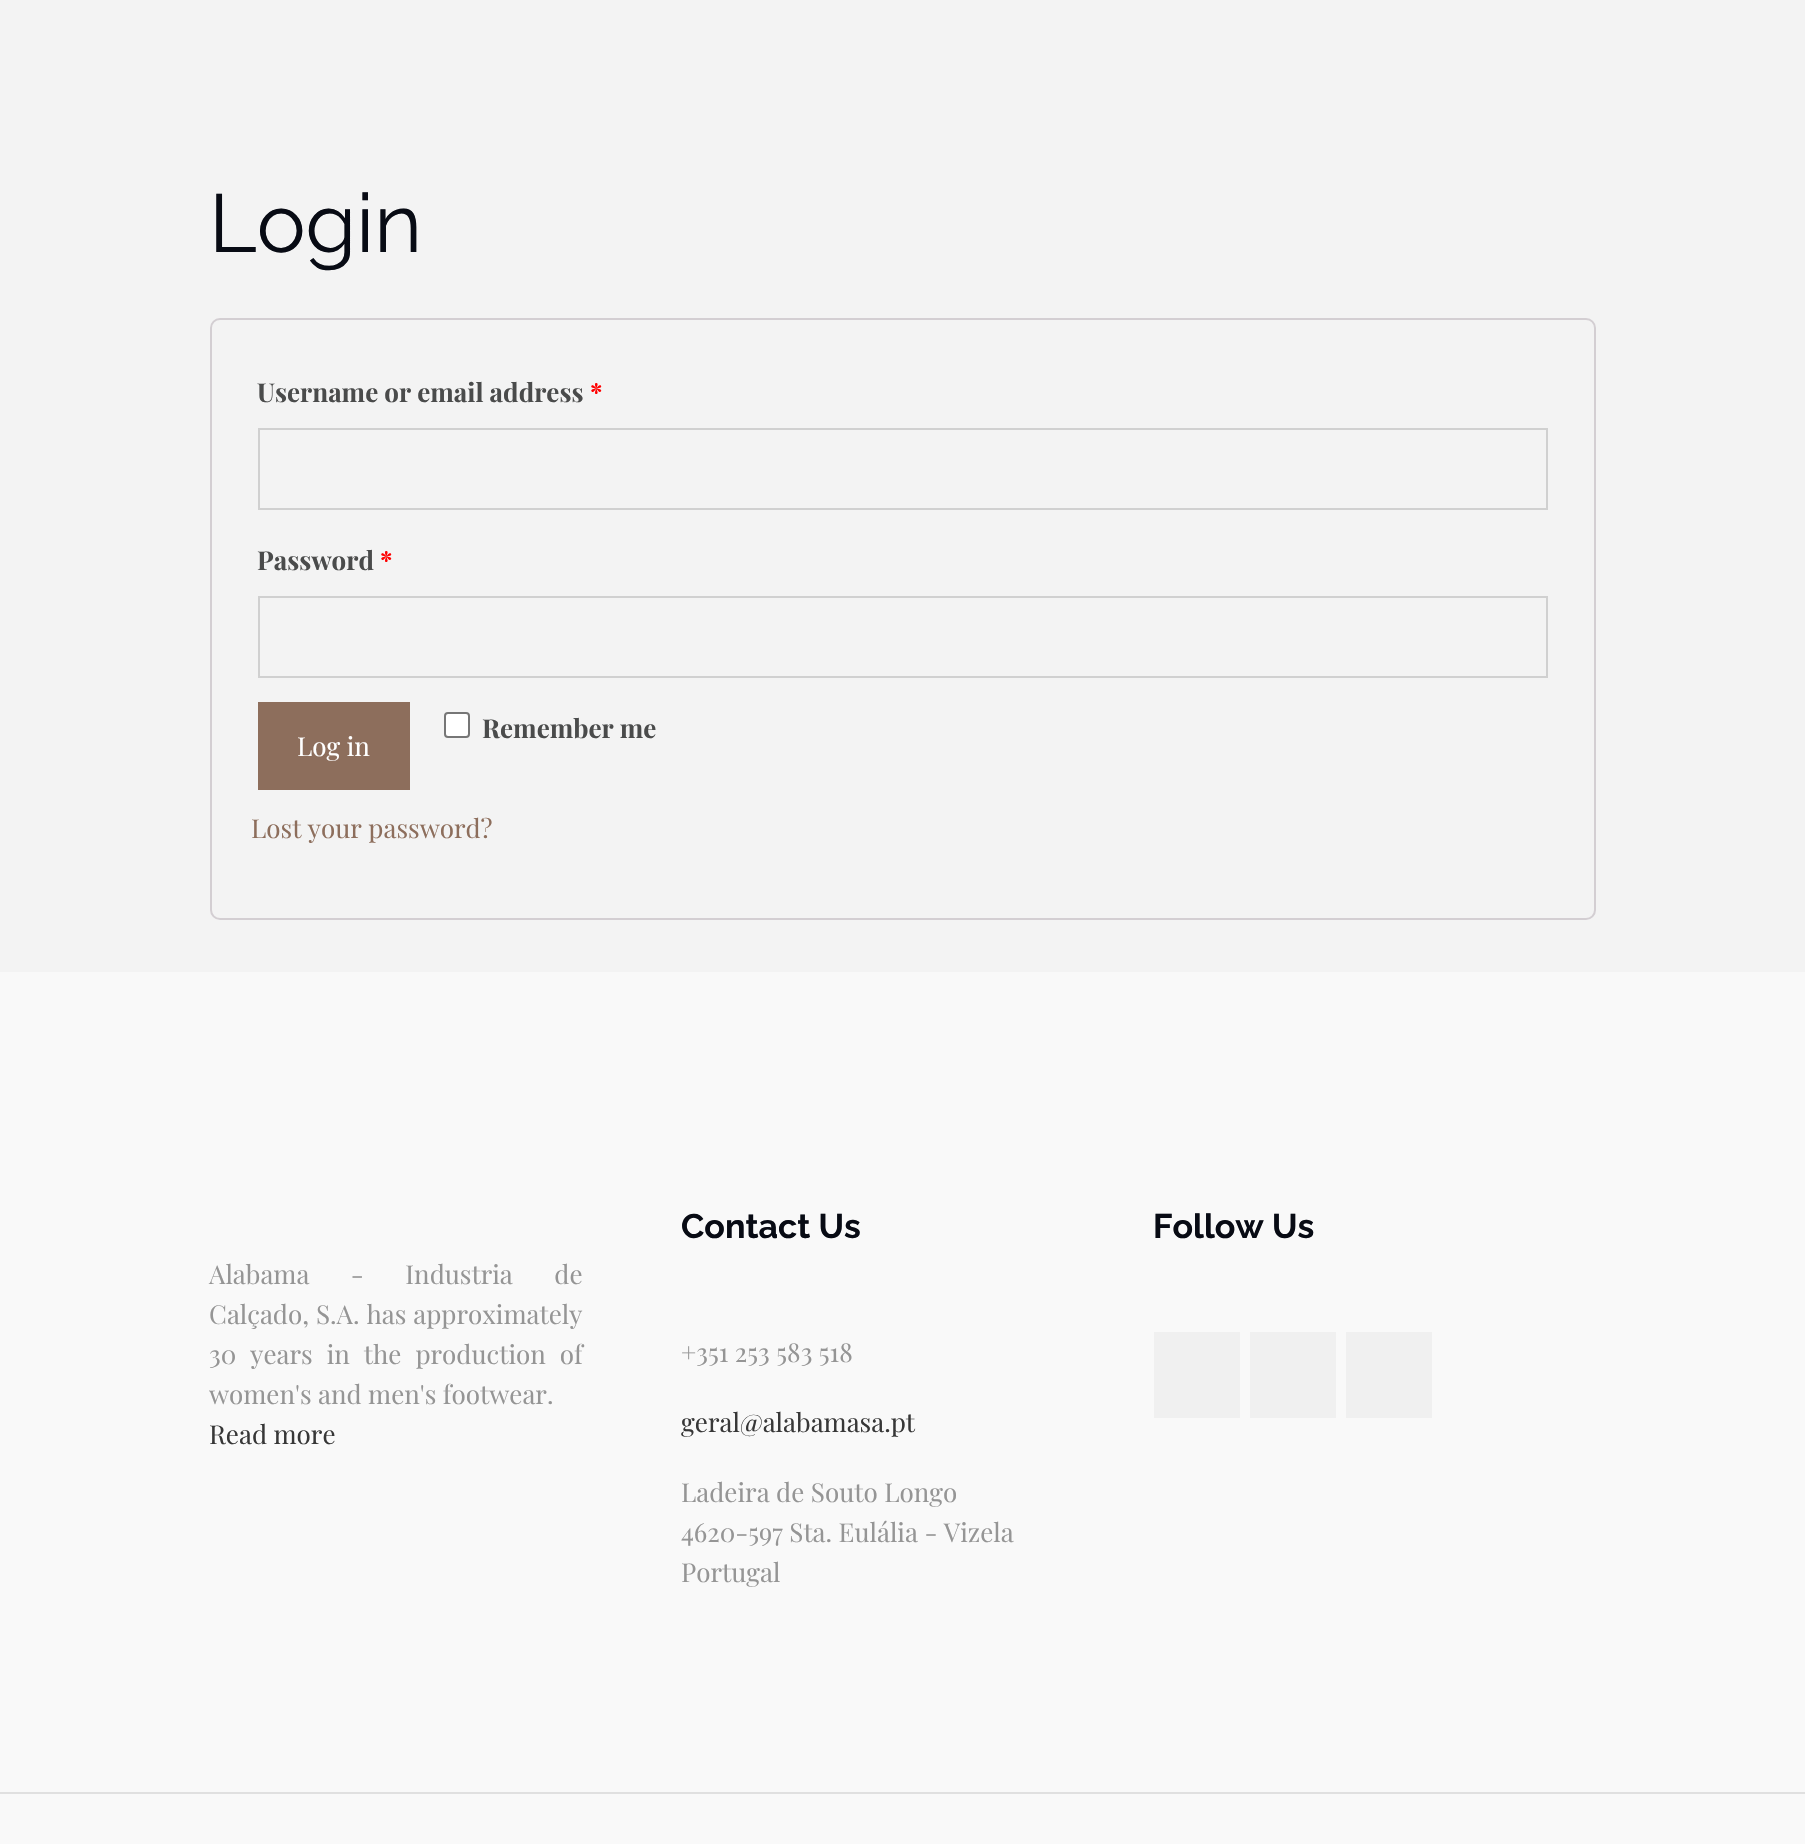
void draw(SkCanvas* canvas) {
	SkPaint fill;
	fill.setAntiAlias(true);
	auto makeFont = [&](const char* family, int weight, float size, bool italic = false) {
		SkFontStyle style(weight, SkFontStyle::kNormal_Width,
			italic ? SkFontStyle::kItalic_Slant : SkFontStyle::kUpright_Slant);
		SkFont result(fontMgr->matchFamilyStyle(family, style), size);
		result.setSubpixel(true);
		return result;
	};
	auto text = [&](const char* s, float x, float y, const SkFont& font) {
		canvas->drawString(s, x, y, font, fill);
	};
	auto spacedText = [&](const char* s, float x, float y, const SkFont& font, const SkPaint& ink, float letter, float word) {
		std::vector<SkGlyphID> glyphs(font.countText(s, strlen(s), SkTextEncoding::kUTF8));
		std::vector<float> xs(glyphs.size());
		font.textToGlyphs(s, strlen(s), SkTextEncoding::kUTF8, glyphs);
		font.getXPos(glyphs, xs, x);
		float extra = 0;
		for (size_t i = 0; i < glyphs.size(); i++) {
			xs[i] += extra;
			extra += letter + word * (glyphs[i] == font.unicharToGlyph(' '));
		}
		canvas->drawTextBlob(SkTextBlob::MakeFromPosHGlyphs(glyphs, xs, y, font), 0, 0, ink);
	};
	auto box = [&](float l, float t, float r, float b) {
		canvas->drawRect(SkRect::MakeLTRB(l, t, r, b), fill);
	};
	canvas->clear(0xFFF3F3F3);
	fill.setStyle(SkPaint::kStroke_Style);
	fill.setStrokeWidth(2);
	fill.setColor(0xFFD3CED2);
	canvas->drawRoundRect(SkRect::MakeLTRB(211, 319, 1595, 919), 9, 9, fill);
	fill.setColor(0xFFD0D0D0);
	canvas->drawRect(SkRect::MakeLTRB(259, 429, 1547, 509), fill);
	canvas->drawRect(SkRect::MakeLTRB(259, 597, 1547, 677), fill);
	fill.setStyle(SkPaint::kFill_Style);
	fill.setColor(0xFFFFFFFF);
	canvas->drawRoundRect(SkRect::MakeLTRB(445, 713, 469, 737), 3, 3, fill);
	fill.setStyle(SkPaint::kStroke_Style);
	fill.setColor(0xFF767676);
	canvas->drawRoundRect(SkRect::MakeLTRB(445, 713, 469, 737), 3, 3, fill);
	fill.setStyle(SkPaint::kFill_Style);
	fill.setColor(0xFF8D6E5C);
	box(258, 702, 410, 790);
	fill.setColor(0xFFF9F9F9);
	box(0, 972, 1805, 1844);
	fill.setColor(0xFFF0F0F0);
	box(1154, 1332, 1240, 1418);
	box(1250, 1332, 1336, 1418);
	box(1346, 1332, 1432, 1418);
	fill.setColor(0xFFE0E0E0);
	box(0, 1792, 1805, 1794);
	auto font1 = makeFont("Raleway", 400, 82);
	fill.setColor(0xFF080B14);
	text("Login", 209, 252, font1);
	auto font2 = makeFont("Playfair Display", 700, 26);
	fill.setColor(0xFF4A4B4B);
	text("Username or email address", 257, 402, font2);
	fill.setColor(0xFFFF0000);
	text("*", 590, 402, font2);
	fill.setColor(0xFF4A4B4B);
	text("Password", 257, 570, font2);
	fill.setColor(0xFFFF0000);
	text("*", 380, 570, font2);
	fill.setColor(0xFF4A4B4B);
	text("Remember me", 482, 738, font2);
	auto font3 = makeFont("Playfair Display", 400, 26);
	fill.setColor(0xFFFFFFFF);
	text("Log in", 297, 756, font3);
	fill.setColor(0xFF8D6E5C);
	text("Lost your password?", 251, 838, font3);
	auto font4 = makeFont("Raleway", 700, 34);
	fill.setColor(0xFF080B14);
	text("Contact Us", 681, 1238, font4);
	fill.setColor(0xFF959595);
	text("+351 253 583 518", 681, 1362, font3);
	fill.setColor(0xFF373737);
	text("geral@alabamasa.pt", 681, 1432, font3);
	fill.setColor(0xFF959595);
	text("Ladeira de Souto Longo", 681, 1502, font3);
	text("4620-597 Sta. Eulália - Vizela", 681, 1542, font3);
	text("Portugal", 681, 1582, font3);
	fill.setColor(0xFF080B14);
	text("Follow Us", 1153, 1238, font4);
	fill.setColor(0xFF959595);
	spacedText("Alabama - Industria de", 209, 1284, font3, fill, 0, 35);
	spacedText("Calçado, S.A. has approximately", 209, 1324, font3, fill, 0, 0.5f);
	spacedText("30 years in the production of", 209, 1364, font3, fill, 0, 7.5f);
	text("women's and men's footwear.", 209, 1404, font3);
	fill.setColor(0xFF373737);
	text("Read more", 209, 1444, font3);
}
